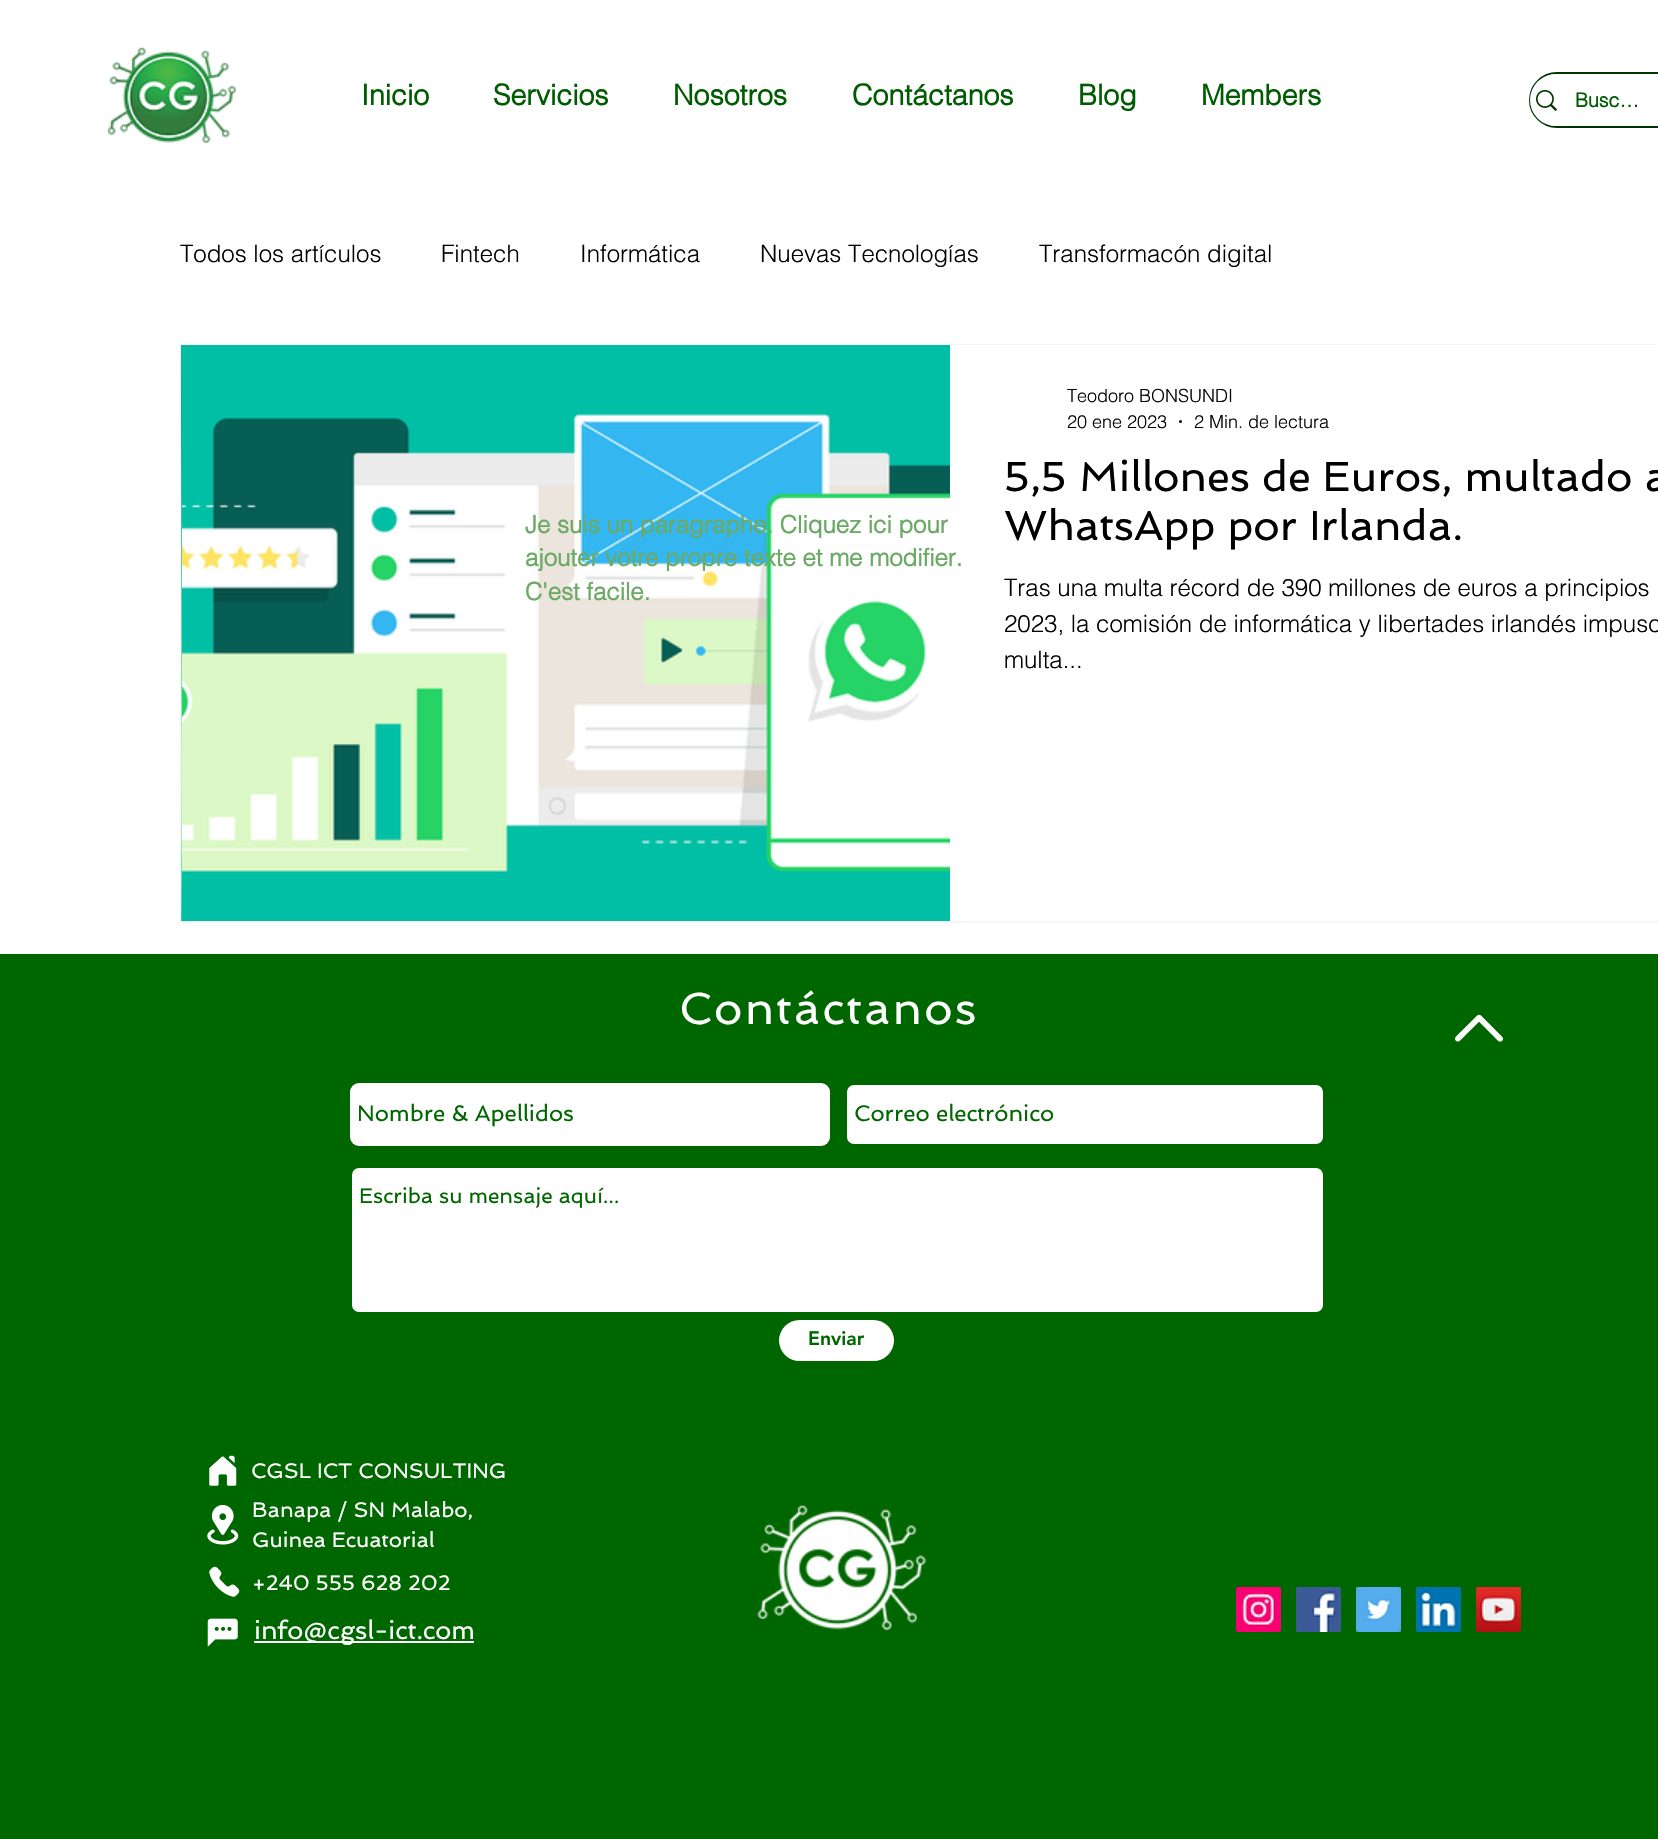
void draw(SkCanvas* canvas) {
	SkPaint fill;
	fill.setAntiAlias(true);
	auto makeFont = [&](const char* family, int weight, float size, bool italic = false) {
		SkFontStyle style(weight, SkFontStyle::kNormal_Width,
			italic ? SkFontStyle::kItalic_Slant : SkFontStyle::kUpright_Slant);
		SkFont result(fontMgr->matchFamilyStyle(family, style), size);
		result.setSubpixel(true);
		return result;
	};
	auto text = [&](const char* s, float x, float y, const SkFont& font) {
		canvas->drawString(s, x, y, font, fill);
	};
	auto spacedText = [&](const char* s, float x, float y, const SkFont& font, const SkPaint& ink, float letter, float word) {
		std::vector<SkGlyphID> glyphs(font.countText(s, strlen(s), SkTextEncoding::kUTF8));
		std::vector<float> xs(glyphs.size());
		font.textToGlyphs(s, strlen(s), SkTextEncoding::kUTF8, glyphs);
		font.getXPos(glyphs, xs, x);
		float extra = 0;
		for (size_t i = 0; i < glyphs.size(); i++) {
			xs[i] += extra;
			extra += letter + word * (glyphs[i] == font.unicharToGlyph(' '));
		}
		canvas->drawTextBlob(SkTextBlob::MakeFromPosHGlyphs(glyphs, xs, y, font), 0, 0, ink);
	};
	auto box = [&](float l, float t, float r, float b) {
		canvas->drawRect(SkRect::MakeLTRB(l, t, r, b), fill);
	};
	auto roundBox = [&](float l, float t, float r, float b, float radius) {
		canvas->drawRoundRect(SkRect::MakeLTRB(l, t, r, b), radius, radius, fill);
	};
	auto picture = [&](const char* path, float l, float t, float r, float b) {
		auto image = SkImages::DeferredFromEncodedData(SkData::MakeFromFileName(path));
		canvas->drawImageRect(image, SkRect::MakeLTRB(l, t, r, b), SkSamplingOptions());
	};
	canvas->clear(0xFFFFFFFF);
	picture("image0.png", 107, 46, 237, 144);
	fill.setStyle(SkPaint::kStroke_Style);
	fill.setStrokeWidth(2);
	fill.setColor(0xFF003300);
	canvas->drawRoundRect(SkRect::MakeLTRB(1530, 73, 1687, 127), 27, 27, fill);
	fill.setStyle(SkPaint::kFill_Style);
	fill.setColor(0xFFFFFFFF);
	roundBox(1530, 74, 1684, 126, 26);
	picture("image1.png", 1536, 90, 1557, 111);
	fill.setStyle(SkPaint::kStroke_Style);
	fill.setColor(0xFFF5F5F5);
	canvas->drawRect(SkRect::MakeLTRB(181, 345, 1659, 922), fill);
	picture("image2.png", 181, 345, 182, 921);
	picture("image3.png", 182, 345, 950, 921);
	fill.setStyle(SkPaint::kFill_Style);
	fill.setColor(0xFFFFFFFF);
	box(950, 345, 1658, 346);
	fill.setColor(0xFF000000);
	canvas->drawCircle(1180.5f, 421.5f, 1.5f, fill);
	fill.setColor(0xFF006600);
	box(0, 954, 1658, 1839);
	picture("image4.png", 1455, 1014, 1503, 1042);
	fill.setColor(0xFFFFFFFF);
	roundBox(350, 1083, 830, 1146, 9);
	canvas->drawRoundRect(SkRect::MakeLTRB(846, 1084, 1324, 1145), 8, 8, fill);
	fill.setStyle(SkPaint::kStroke_Style);
	fill.setColor(0xFF006600);
	canvas->drawRoundRect(SkRect::MakeLTRB(846, 1084, 1324, 1145), 8, 8, fill);
	fill.setStyle(SkPaint::kFill_Style);
	fill.setColor(0xFFFFFFFF);
	canvas->drawRoundRect(SkRect::MakeLTRB(351, 1167, 1324, 1313), 8, 8, fill);
	fill.setStyle(SkPaint::kStroke_Style);
	fill.setColor(0xFF006600);
	canvas->drawRoundRect(SkRect::MakeLTRB(351, 1167, 1324, 1313), 8, 8, fill);
	fill.setStyle(SkPaint::kFill_Style);
	fill.setColor(0xFFFFFFFF);
	roundBox(779, 1320, 894, 1361, 20.5f);
	picture("image5.png", 209, 1455, 237, 1486);
	picture("image6.png", 207, 1504, 239, 1545);
	picture("image7.png", 209, 1566, 240, 1597);
	picture("image8.png", 207, 1618, 238, 1647);
	box(254, 1641, 474, 1643);
	picture("image9.png", 757, 1504, 926, 1631);
	picture("image10.png", 1236, 1587, 1281, 1632);
	picture("image11.png", 1296, 1587, 1341, 1632);
	picture("image12.png", 1356, 1587, 1401, 1632);
	picture("image13.png", 1416, 1587, 1461, 1632);
	picture("image14.png", 1476, 1587, 1521, 1632);
	auto font1 = makeFont("helvetica", 700, 28.5f);
	fill.setColor(0xFF005C00);
	text("Inicio", 361, 105, font1);
	text("Servicios", 493, 105, font1);
	text("Nosotros", 673, 105, font1);
	text("Contáctanos", 852, 105, font1);
	text("Blog", 1078, 105, font1);
	text("Members", 1201, 105, font1);
	auto font2 = makeFont("helvetica", 700, 19.5f);
	text("Busc…", 1575, 107, font2);
	auto font3 = makeFont("helvetica", 300, 24);
	fill.setColor(0xFF000000);
	text("Todos los artículos", 180, 262, font3);
	text("Fintech", 441, 262, font3);
	text("Informática", 580, 262, font3);
	text("Nuevas Tecnologías", 760, 262, font3);
	text("Transformacón digital", 1039, 262, font3);
	auto font4 = makeFont("helvetica", 300, 18);
	text("Teodoro BONSUNDI", 1067, 402, font4);
	text("20 ene 2023", 1067, 428, font4);
	text("2 Min. de lectura", 1194, 428, font4);
	auto font5 = makeFont("Spinnaker", 400, 42);
	text("5,5 Millones de Euros, multado a", 1004, 491, font5);
	text("WhatsApp por Irlanda.", 1004, 540, font5);
	text("Tras una multa récord de 390 millones de euros a principios", 1004, 596, font3);
	text("2023, la comisión de informática y libertades irlandés impuso", 1004, 632, font3);
	text("multa...", 1004, 668, font3);
	auto font6 = makeFont("helvetica", 700, 24);
	fill.setColor(0xFF6BAA64);
	text("Je suis un paragraphe. Cliquez ici pour", 525, 533, font6);
	text("ajouter votre propre texte et me modifier.", 525, 566, font6);
	text("C'est facile.", 525, 600, font6);
	auto font7 = makeFont("Spinnaker", 400, 45);
	fill.setColor(0xFFFFFFFF);
	spacedText("Contáctanos", 679, 1024, font7, fill, 2.25f, 0);
	auto font8 = makeFont("Spinnaker", 400, 22.5f);
	fill.setColor(0xFF006600);
	text("Nombre & Apellidos", 357, 1121, font8);
	text("Correo electrónico", 854, 1121, font8);
	auto font9 = makeFont("Spinnaker", 400, 21);
	text("Escriba su mensaje aquí...", 359, 1203, font9);
	auto font10 = makeFont("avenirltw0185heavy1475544", 900, 19.5f);
	text("Enviar", 808, 1345, font10);
	fill.setColor(0xFFFFFFFF);
	text("CGSL ICT CONSULTING", 251, 1478, font9);
	text("Banapa / SN Malabo,", 252, 1517, font9);
	text("Guinea Ecuatorial", 252, 1547, font9);
	text("+240 555 628 202", 252, 1590, font9);
	auto font11 = makeFont("Spinnaker", 400, 25.5f);
	text("info@cgsl-ict.com", 254, 1639, font11);
}
